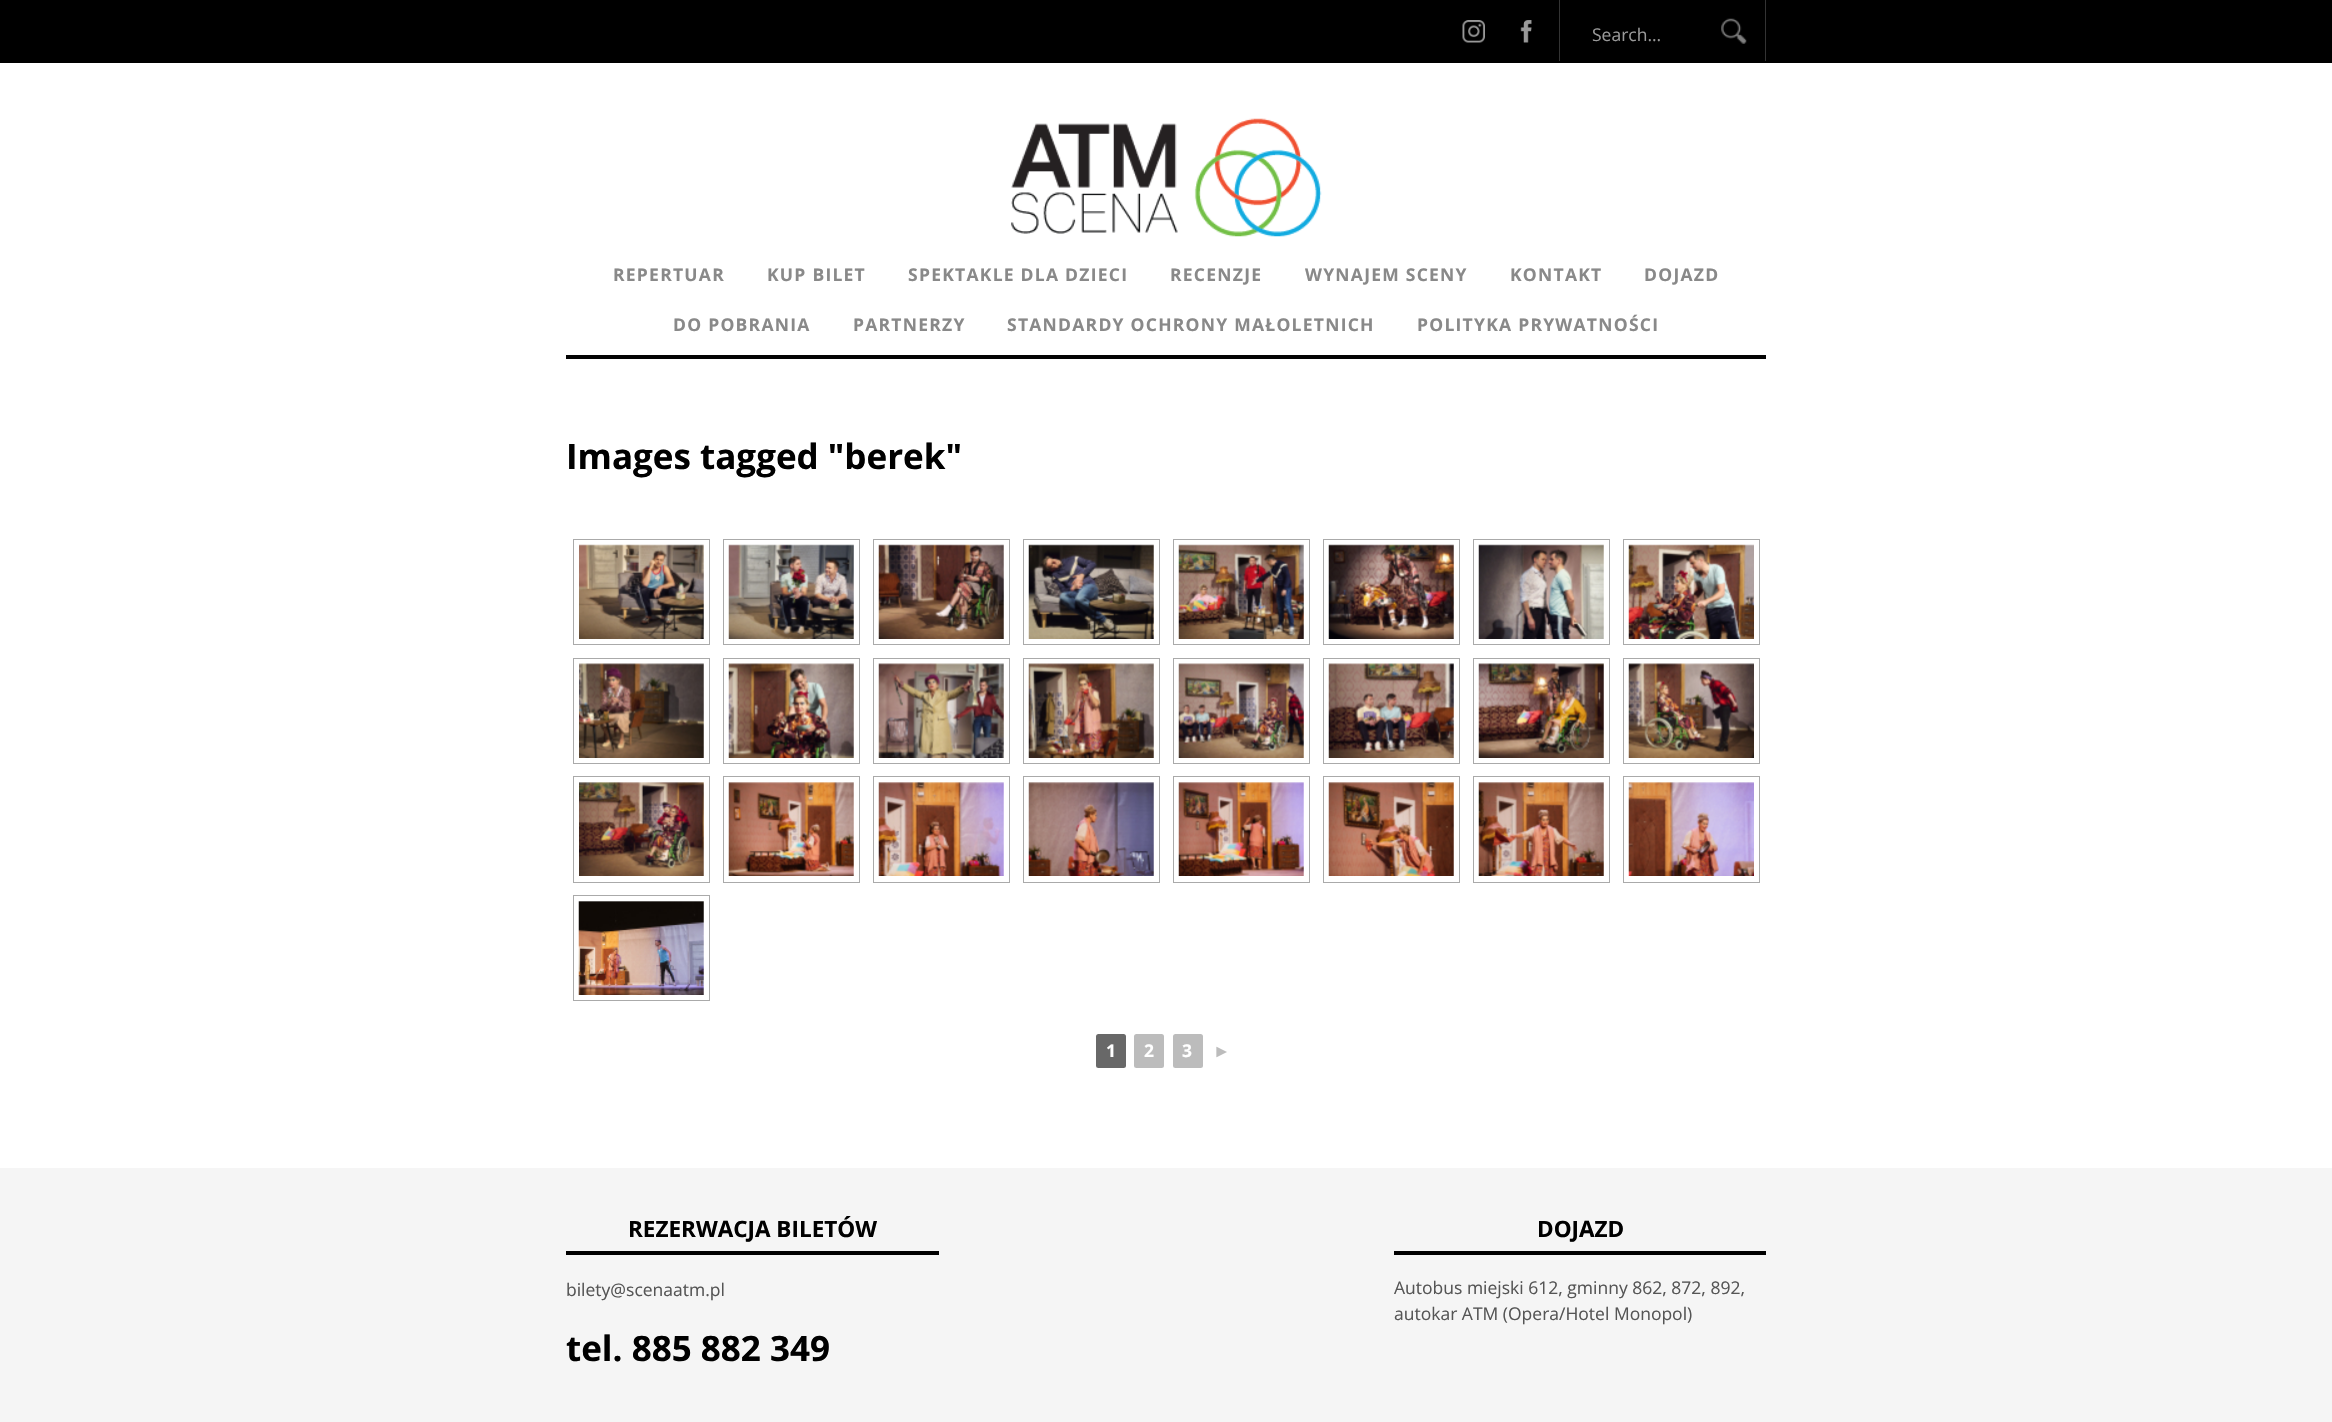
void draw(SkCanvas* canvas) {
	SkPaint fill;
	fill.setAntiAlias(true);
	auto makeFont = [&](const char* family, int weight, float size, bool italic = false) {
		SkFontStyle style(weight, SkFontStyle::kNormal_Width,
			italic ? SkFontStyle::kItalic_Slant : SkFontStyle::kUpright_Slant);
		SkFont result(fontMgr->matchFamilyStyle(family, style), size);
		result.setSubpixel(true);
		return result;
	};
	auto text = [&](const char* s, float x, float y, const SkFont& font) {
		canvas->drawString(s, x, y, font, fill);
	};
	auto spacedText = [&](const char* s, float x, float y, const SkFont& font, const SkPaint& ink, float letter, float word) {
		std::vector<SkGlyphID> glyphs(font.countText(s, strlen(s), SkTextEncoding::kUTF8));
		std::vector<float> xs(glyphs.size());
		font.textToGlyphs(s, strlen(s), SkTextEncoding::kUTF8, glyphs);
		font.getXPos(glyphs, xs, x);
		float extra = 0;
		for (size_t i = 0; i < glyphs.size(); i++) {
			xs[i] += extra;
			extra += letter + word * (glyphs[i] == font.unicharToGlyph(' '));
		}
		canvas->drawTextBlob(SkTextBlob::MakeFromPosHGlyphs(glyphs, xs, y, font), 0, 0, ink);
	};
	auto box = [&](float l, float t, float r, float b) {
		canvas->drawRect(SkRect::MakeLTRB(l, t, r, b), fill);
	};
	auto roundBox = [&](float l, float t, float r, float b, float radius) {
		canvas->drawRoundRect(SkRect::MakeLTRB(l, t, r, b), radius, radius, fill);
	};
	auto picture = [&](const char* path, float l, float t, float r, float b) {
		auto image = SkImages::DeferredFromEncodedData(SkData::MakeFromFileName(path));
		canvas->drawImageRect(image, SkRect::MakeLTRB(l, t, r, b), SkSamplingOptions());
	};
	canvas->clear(0xFFFFFFFF);
	fill.setColor(0xFF000000);
	box(0, 0, 2332, 63);
	picture("image0.png", 1462, 20, 1485, 43);
	picture("image1.png", 1520, 20, 1532, 43);
	fill.setColor(0xFF333333);
	box(1765, 0, 1766, 61);
	box(1559, 0, 1560, 61);
	picture("image2.png", 1721, 18, 1747, 44);
	picture("image3.png", 1011, 118, 1322, 237);
	fill.setColor(0xFF030303);
	box(566, 355, 1766, 359);
	fill.setStyle(SkPaint::kStroke_Style);
	fill.setStrokeWidth(1);
	fill.setColor(0xFFAAAAAA);
	canvas->drawRect(SkRect::MakeLTRB(573.5f, 539.5f, 709.5f, 644.5f), fill);
	picture("image4.png", 579, 544, 704, 639);
	canvas->drawRect(SkRect::MakeLTRB(723.5f, 539.5f, 859.5f, 644.5f), fill);
	picture("image5.png", 728, 544, 854, 639);
	canvas->drawRect(SkRect::MakeLTRB(873.5f, 539.5f, 1009.5f, 644.5f), fill);
	picture("image6.png", 878, 544, 1004, 639);
	canvas->drawRect(SkRect::MakeLTRB(1023.5f, 539.5f, 1159.5f, 644.5f), fill);
	picture("image7.png", 1028, 544, 1154, 639);
	canvas->drawRect(SkRect::MakeLTRB(1173.5f, 539.5f, 1309.5f, 644.5f), fill);
	picture("image8.png", 1178, 544, 1304, 639);
	canvas->drawRect(SkRect::MakeLTRB(1323.5f, 539.5f, 1459.5f, 644.5f), fill);
	picture("image9.png", 1328, 544, 1454, 639);
	canvas->drawRect(SkRect::MakeLTRB(1473.5f, 539.5f, 1609.5f, 644.5f), fill);
	picture("image10.png", 1478, 544, 1604, 639);
	canvas->drawRect(SkRect::MakeLTRB(1623.5f, 539.5f, 1759.5f, 644.5f), fill);
	picture("image11.png", 1628, 544, 1754, 639);
	canvas->drawRect(SkRect::MakeLTRB(573.5f, 658.5f, 709.5f, 763.5f), fill);
	picture("image12.png", 579, 663, 704, 758);
	canvas->drawRect(SkRect::MakeLTRB(723.5f, 658.5f, 859.5f, 763.5f), fill);
	picture("image13.png", 728, 663, 854, 758);
	canvas->drawRect(SkRect::MakeLTRB(873.5f, 658.5f, 1009.5f, 763.5f), fill);
	picture("image14.png", 878, 663, 1004, 758);
	canvas->drawRect(SkRect::MakeLTRB(1023.5f, 658.5f, 1159.5f, 763.5f), fill);
	picture("image15.png", 1028, 663, 1154, 758);
	canvas->drawRect(SkRect::MakeLTRB(1173.5f, 658.5f, 1309.5f, 763.5f), fill);
	picture("image16.png", 1178, 663, 1304, 758);
	canvas->drawRect(SkRect::MakeLTRB(1323.5f, 658.5f, 1459.5f, 763.5f), fill);
	picture("image17.png", 1328, 663, 1454, 758);
	canvas->drawRect(SkRect::MakeLTRB(1473.5f, 658.5f, 1609.5f, 763.5f), fill);
	picture("image18.png", 1478, 663, 1604, 758);
	canvas->drawRect(SkRect::MakeLTRB(1623.5f, 658.5f, 1759.5f, 763.5f), fill);
	picture("image19.png", 1628, 663, 1754, 758);
	canvas->drawRect(SkRect::MakeLTRB(573.5f, 776.5f, 709.5f, 882.5f), fill);
	picture("image20.png", 579, 782, 704, 876);
	canvas->drawRect(SkRect::MakeLTRB(723.5f, 776.5f, 859.5f, 882.5f), fill);
	picture("image21.png", 728, 782, 854, 876);
	canvas->drawRect(SkRect::MakeLTRB(873.5f, 776.5f, 1009.5f, 882.5f), fill);
	picture("image22.png", 878, 782, 1004, 876);
	canvas->drawRect(SkRect::MakeLTRB(1023.5f, 776.5f, 1159.5f, 882.5f), fill);
	picture("image23.png", 1028, 782, 1154, 876);
	canvas->drawRect(SkRect::MakeLTRB(1173.5f, 776.5f, 1309.5f, 882.5f), fill);
	picture("image24.png", 1178, 782, 1304, 876);
	canvas->drawRect(SkRect::MakeLTRB(1323.5f, 776.5f, 1459.5f, 882.5f), fill);
	picture("image25.png", 1328, 782, 1454, 876);
	canvas->drawRect(SkRect::MakeLTRB(1473.5f, 776.5f, 1609.5f, 882.5f), fill);
	picture("image26.png", 1478, 782, 1604, 876);
	canvas->drawRect(SkRect::MakeLTRB(1623.5f, 776.5f, 1759.5f, 882.5f), fill);
	picture("image27.png", 1628, 782, 1754, 876);
	canvas->drawRect(SkRect::MakeLTRB(573.5f, 895.5f, 709.5f, 1000.5f), fill);
	picture("image28.png", 578, 901, 704, 995);
	fill.setStyle(SkPaint::kFill_Style);
	fill.setColor(0xFF686868);
	roundBox(1096, 1034, 1126, 1068, 2.5f);
	fill.setColor(0xFFBCBCBC);
	roundBox(1134, 1034, 1164, 1068, 2.5f);
	roundBox(1173, 1034, 1203, 1068, 2.5f);
	fill.setColor(0xFFF5F5F5);
	box(0, 1168, 2332, 1422);
	fill.setColor(0xFF000000);
	box(566, 1251, 939, 1255);
	box(1394, 1251, 1766, 1255);
	auto font1 = makeFont("Open Sans", 400, 17.5f);
	fill.setColor(0xFF999999);
	text("Search...", 1592, 41, font1);
	auto font2 = makeFont("Open Sans", 700, 17.5f);
	fill.setColor(0xFF898989);
	spacedText("REPERTUAR", 613, 281, font2, fill, 1.25f, 0);
	spacedText("KUP BILET", 767, 281, font2, fill, 1.25f, 0);
	spacedText("SPEKTAKLE DLA DZIECI", 908, 281, font2, fill, 1.25f, 0);
	spacedText("RECENZJE", 1170, 281, font2, fill, 1.25f, 0);
	spacedText("WYNAJEM SCENY", 1305, 281, font2, fill, 1.25f, 0);
	spacedText("KONTAKT", 1510, 281, font2, fill, 1.25f, 0);
	spacedText("DOJAZD", 1644, 281, font2, fill, 1.25f, 0);
	spacedText("DO POBRANIA", 673, 331, font2, fill, 1.25f, 0);
	spacedText("PARTNERZY", 853, 331, font2, fill, 1.25f, 0);
	spacedText("STANDARDY OCHRONY MAŁOLETNICH", 1007, 331, font2, fill, 1.25f, 0);
	spacedText("POLITYKA PRYWATNOŚCI", 1417, 331, font2, fill, 1.25f, 0);
	auto font3 = makeFont("Open Sans", 700, 35);
	fill.setColor(0xFF000000);
	text("Images tagged \"berek\"", 566, 469, font3);
	fill.setColor(0xFFFFFFFF);
	text("1", 1106, 1057, font2);
	text("2", 1144, 1057, font2);
	text("3", 1182, 1057, font2);
	auto font4 = makeFont("Liberation Sans", 700, 17.5f);
	fill.setColor(0xFFBCBCBC);
	text("►", 1213, 1057, font4);
	auto font5 = makeFont("Open Sans", 700, 22.5f);
	fill.setColor(0xFF000000);
	text("REZERWACJA BILETÓW", 628, 1237, font5);
	fill.setColor(0xFF555555);
	text("bilety@scenaatm.pl", 566, 1296, font1);
	fill.setColor(0xFF000000);
	text("tel. 885 882 349", 566, 1361, font3);
	text("DOJAZD", 1537, 1237, font5);
	fill.setColor(0xFF555555);
	text("Autobus miejski 612, gminny 862, 872, 892,", 1394, 1294, font1);
	text("autokar ATM (Opera/Hotel Monopol)", 1394, 1320, font1);
}
